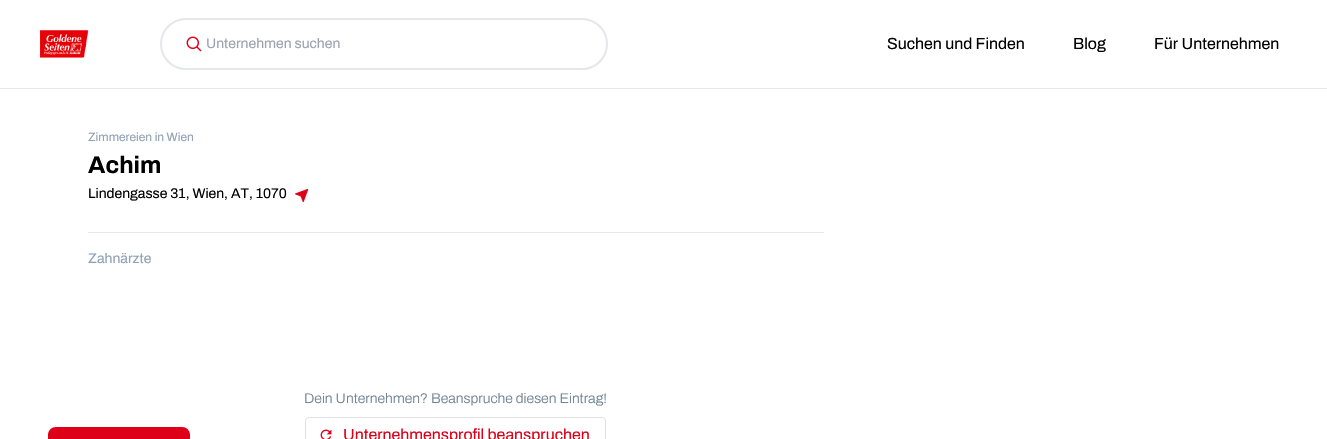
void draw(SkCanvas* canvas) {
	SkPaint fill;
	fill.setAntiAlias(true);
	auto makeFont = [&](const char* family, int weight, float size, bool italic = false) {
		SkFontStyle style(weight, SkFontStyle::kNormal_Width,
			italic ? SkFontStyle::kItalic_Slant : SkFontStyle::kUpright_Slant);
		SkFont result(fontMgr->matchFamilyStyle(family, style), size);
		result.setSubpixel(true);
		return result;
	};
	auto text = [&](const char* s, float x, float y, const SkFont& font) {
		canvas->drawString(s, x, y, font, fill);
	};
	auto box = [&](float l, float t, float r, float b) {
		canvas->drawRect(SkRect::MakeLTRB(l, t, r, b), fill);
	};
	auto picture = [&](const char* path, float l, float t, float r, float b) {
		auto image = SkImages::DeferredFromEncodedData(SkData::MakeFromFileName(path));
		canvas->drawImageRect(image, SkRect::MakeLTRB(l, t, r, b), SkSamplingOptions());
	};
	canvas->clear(0xFFFFFFFF);
	fill.setColor(0xFFE5E7EB);
	box(0, 88, 1327, 89);
	picture("image0.png", 40, 30, 89, 58);
	fill.setStyle(SkPaint::kStroke_Style);
	fill.setStrokeWidth(2);
	canvas->drawRoundRect(SkRect::MakeLTRB(161, 19, 607, 69), 25, 25, fill);
	picture("image1.png", 186, 36, 202, 52);
	picture("image2.png", 295, 188, 309, 203);
	fill.setStyle(SkPaint::kFill_Style);
	box(88, 232, 824, 233);
	fill.setStyle(SkPaint::kStroke_Style);
	fill.setStrokeWidth(1);
	fill.setColor(0xFFE0E0E0);
	canvas->drawRoundRect(SkRect::MakeLTRB(305.5f, 417.5f, 605.5f, 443.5f), 3.5f, 3.5f, fill);
	picture("image3.png", 320, 429, 332, 439);
	fill.setStyle(SkPaint::kFill_Style);
	fill.setColor(0xFFDE0019);
	canvas->drawPath(SkPathBuilder().moveTo(56, 427).lineTo(182, 427).cubicTo(186.5f, 427, 190, 430.5f, 190, 435).lineTo(190, 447).lineTo(48, 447).lineTo(48, 435).cubicTo(48, 430.5f, 51.5f, 427, 56, 427).close().detach(), fill);
	auto font1 = makeFont("Archivo", 400, 14);
	fill.setColor(0xFF9CA3AF);
	text("Unternehmen suchen", 206, 48, font1);
	auto font2 = makeFont("Archivo", 400, 16);
	fill.setColor(0xFF000000);
	text("Suchen und Finden", 887, 49, font2);
	text("Blog", 1073, 49, font2);
	text("Für Unternehmen", 1154, 49, font2);
	auto font3 = makeFont("Archivo", 400, 12);
	fill.setColor(0xFF91A2B5);
	text("Zimmereien in Wien", 88, 141, font3);
	auto font4 = makeFont("Archivo", 700, 24);
	fill.setColor(0xFF000000);
	text("Achim", 88, 173, font4);
	text("Lindengasse 31, Wien, AT, 1070", 88, 198, font1);
	fill.setColor(0xFF91A2B5);
	text("Zahnärzte", 88, 263, font1);
	auto font5 = makeFont("Archivo", 300, 14);
	fill.setColor(0xFF748597);
	text("Dein Unternehmen? Beanspruche diesen Eintrag!", 304, 403, font5);
	fill.setColor(0xFFDE0019);
	text("Unternehmensprofil beanspruchen", 343, 440, font2);
}
